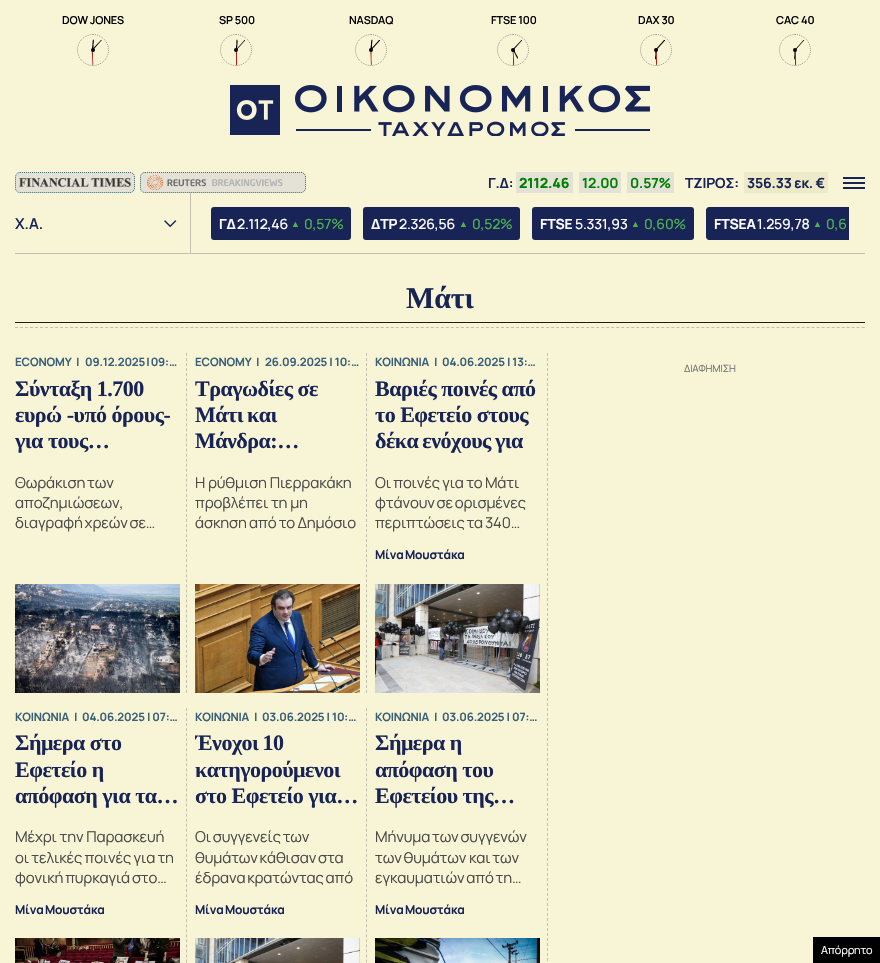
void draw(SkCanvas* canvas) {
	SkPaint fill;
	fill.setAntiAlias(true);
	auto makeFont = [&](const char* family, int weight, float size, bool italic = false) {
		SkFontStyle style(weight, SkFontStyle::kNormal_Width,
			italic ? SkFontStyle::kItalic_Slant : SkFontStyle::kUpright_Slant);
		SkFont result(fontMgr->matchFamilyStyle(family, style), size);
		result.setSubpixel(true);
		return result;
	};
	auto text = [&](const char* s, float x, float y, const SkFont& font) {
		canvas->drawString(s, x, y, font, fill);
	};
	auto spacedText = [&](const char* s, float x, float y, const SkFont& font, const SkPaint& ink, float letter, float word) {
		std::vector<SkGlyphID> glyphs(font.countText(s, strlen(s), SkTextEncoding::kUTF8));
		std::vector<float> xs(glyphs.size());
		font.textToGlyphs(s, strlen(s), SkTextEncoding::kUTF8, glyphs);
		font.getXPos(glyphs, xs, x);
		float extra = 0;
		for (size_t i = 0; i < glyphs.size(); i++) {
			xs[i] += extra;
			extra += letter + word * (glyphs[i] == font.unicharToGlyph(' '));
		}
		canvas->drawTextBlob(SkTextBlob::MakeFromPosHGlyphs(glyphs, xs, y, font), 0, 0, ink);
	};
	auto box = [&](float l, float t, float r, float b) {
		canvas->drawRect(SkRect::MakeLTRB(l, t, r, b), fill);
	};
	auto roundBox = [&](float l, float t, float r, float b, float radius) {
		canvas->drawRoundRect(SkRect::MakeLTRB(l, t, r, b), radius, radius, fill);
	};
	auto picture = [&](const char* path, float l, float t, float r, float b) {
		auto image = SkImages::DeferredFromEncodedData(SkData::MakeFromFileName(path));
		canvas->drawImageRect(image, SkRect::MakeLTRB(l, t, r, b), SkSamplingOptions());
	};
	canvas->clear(0xFFF8F5D7);
	fill.setStyle(SkPaint::kStroke_Style);
	fill.setStrokeWidth(1);
	fill.setColor(0xFF9C9A92);
	fill.setPathEffect(SkDashPathEffect::Make({{1, 1}}, 0));
	canvas->drawPath(SkPathBuilder().moveTo(93, 34.5f).cubicTo(101.5f, 34.5f, 108.5f, 41.5f, 108.5f, 50).cubicTo(108.5f, 58.5f, 101.5f, 65.5f, 93, 65.5f).cubicTo(84.5f, 65.5f, 77.5f, 58.5f, 77.5f, 50).cubicTo(77.5f, 41.5f, 84.5f, 34.5f, 93, 34.5f).close().detach(), fill);
	fill.setPathEffect(nullptr);
	fill.setStyle(SkPaint::kFill_Style);
	fill.setColor(0xFF000000);
	canvas->drawPath(SkPathBuilder().moveTo(93.5f, 39.5f).cubicTo(94.5f, 39.5f, 93.5f, 44, 93.5f, 44.5f).cubicTo(93.5f, 45.5f, 94, 49.5f, 92.5f, 49.5f).cubicTo(91.5f, 49.5f, 92.5f, 45, 92.5f, 44.5f).cubicTo(92.5f, 44, 92.5f, 39.5f, 93.5f, 39.5f).close().detach(), fill);
	canvas->drawPath(SkPathBuilder().moveTo(101.5f, 40).lineTo(101.5f, 40.5f).lineTo(93.5f, 49.5f).lineTo(92.5f, 49.5f).lineTo(92.5f, 49).lineTo(101, 40).close().detach(), fill);
	fill.setColor(0xFFAF1F1B);
	canvas->drawPath(SkPathBuilder().moveTo(92.5f, 65.5f).lineTo(92, 55).cubicTo(92, 54.5f, 91.5f, 49.5f, 92.5f, 49.5f).lineTo(93, 49.5f).lineTo(93, 60).cubicTo(93, 60.5f, 94, 65.5f, 92.5f, 65.5f).close().detach(), fill);
	fill.setColor(0xFF000000);
	canvas->drawCircle(93, 50, 2, fill);
	fill.setStyle(SkPaint::kStroke_Style);
	fill.setColor(0xFF9C9A92);
	fill.setPathEffect(SkDashPathEffect::Make({{1, 1}}, 0));
	canvas->drawPath(SkPathBuilder().moveTo(236, 34.5f).cubicTo(244.5f, 34.5f, 251.5f, 41.5f, 251.5f, 50).cubicTo(251.5f, 58.5f, 244.5f, 65.5f, 236, 65.5f).cubicTo(227.5f, 65.5f, 220.5f, 58.5f, 220.5f, 50).cubicTo(220.5f, 41.5f, 227.5f, 34.5f, 236, 34.5f).close().detach(), fill);
	fill.setPathEffect(nullptr);
	fill.setStyle(SkPaint::kFill_Style);
	fill.setColor(0xFF000000);
	canvas->drawPath(SkPathBuilder().moveTo(237, 39.5f).cubicTo(238, 39.5f, 237.5f, 44, 237.5f, 44.5f).cubicTo(237, 45.5f, 237.5f, 49.5f, 236.5f, 49.5f).cubicTo(235.5f, 49.5f, 236, 45, 236.5f, 44.5f).cubicTo(236.5f, 44, 236, 39.5f, 237, 39.5f).close().detach(), fill);
	canvas->drawPath(SkPathBuilder().moveTo(245, 40).lineTo(245, 40.5f).lineTo(237, 49.5f).lineTo(236.5f, 49.5f).lineTo(236.5f, 49).lineTo(244.5f, 40).close().detach(), fill);
	fill.setColor(0xFFAF1F1B);
	canvas->drawPath(SkPathBuilder().moveTo(236.5f, 65.5f).lineTo(236, 65.5f).lineTo(236, 55).cubicTo(236, 54.5f, 235.5f, 49.5f, 236.5f, 49.5f).lineTo(237, 49.5f).lineTo(237, 60).cubicTo(237, 60.5f, 237.5f, 65.5f, 236.5f, 65.5f).close().detach(), fill);
	fill.setColor(0xFF000000);
	canvas->drawCircle(236, 50, 2, fill);
	fill.setStyle(SkPaint::kStroke_Style);
	fill.setColor(0xFF9C9A92);
	fill.setPathEffect(SkDashPathEffect::Make({{1, 1}}, 0));
	canvas->drawPath(SkPathBuilder().moveTo(371, 34.5f).cubicTo(379.5f, 34.5f, 386.5f, 41.5f, 386.5f, 50).cubicTo(386.5f, 58.5f, 379.5f, 65.5f, 371, 65.5f).cubicTo(362.5f, 65.5f, 355.5f, 58.5f, 355.5f, 50).cubicTo(355.5f, 41.5f, 362.5f, 34.5f, 371, 34.5f).close().detach(), fill);
	fill.setPathEffect(nullptr);
	fill.setStyle(SkPaint::kFill_Style);
	fill.setColor(0xFF000000);
	canvas->drawPath(SkPathBuilder().moveTo(372, 39.5f).cubicTo(373, 39.5f, 372, 44, 372, 44.5f).cubicTo(372, 45.5f, 372.5f, 49.5f, 371, 49.5f).cubicTo(370, 49.5f, 371, 45, 371, 44.5f).cubicTo(371, 44, 371, 39.5f, 372, 39.5f).close().detach(), fill);
	canvas->drawPath(SkPathBuilder().moveTo(380, 40).lineTo(380, 40.5f).lineTo(372, 49.5f).lineTo(371, 49.5f).lineTo(371, 49).lineTo(379, 40).close().detach(), fill);
	fill.setColor(0xFFAF1F1B);
	canvas->drawPath(SkPathBuilder().moveTo(371, 65.5f).lineTo(370.5f, 55).cubicTo(370.5f, 54.5f, 370, 49.5f, 371, 49.5f).lineTo(371.5f, 49.5f).lineTo(371.5f, 60).cubicTo(371.5f, 60.5f, 372.5f, 65.5f, 371, 65.5f).close().detach(), fill);
	fill.setColor(0xFF000000);
	canvas->drawCircle(371, 50, 2, fill);
	fill.setStyle(SkPaint::kStroke_Style);
	fill.setColor(0xFF9C9A92);
	fill.setPathEffect(SkDashPathEffect::Make({{1, 1}}, 0));
	canvas->drawPath(SkPathBuilder().moveTo(513, 34.5f).cubicTo(521.5f, 34.5f, 528.5f, 41.5f, 528.5f, 50).cubicTo(528.5f, 58.5f, 521.5f, 65.5f, 513, 65.5f).cubicTo(504.5f, 65.5f, 497.5f, 58.5f, 497.5f, 50).cubicTo(497.5f, 41.5f, 504.5f, 34.5f, 513, 34.5f).close().detach(), fill);
	fill.setPathEffect(nullptr);
	fill.setStyle(SkPaint::kFill_Style);
	fill.setColor(0xFF000000);
	canvas->drawPath(SkPathBuilder().moveTo(518, 58.5f).cubicTo(517, 59, 515.5f, 55, 515, 54).cubicTo(515, 53.5f, 512.5f, 50, 513.5f, 49.5f).cubicTo(514.5f, 49, 515.5f, 53, 516, 54).cubicTo(516.5f, 54.5f, 518.5f, 58, 518, 58.5f).close().detach(), fill);
	canvas->drawPath(SkPathBuilder().moveTo(522, 40).lineTo(522, 40.5f).lineTo(514, 49.5f).lineTo(513.5f, 49.5f).lineTo(513, 49).lineTo(521.5f, 40).close().detach(), fill);
	fill.setColor(0xFFAF1F1B);
	canvas->drawPath(SkPathBuilder().moveTo(513.5f, 65.5f).lineTo(513, 65.5f).lineTo(513, 55).cubicTo(513, 54.5f, 512, 49.5f, 513.5f, 49.5f).lineTo(514, 60).cubicTo(514, 60.5f, 514.5f, 65.5f, 513.5f, 65.5f).close().detach(), fill);
	fill.setColor(0xFF000000);
	canvas->drawCircle(513, 50, 2, fill);
	fill.setStyle(SkPaint::kStroke_Style);
	fill.setColor(0xFF9C9A92);
	fill.setPathEffect(SkDashPathEffect::Make({{1, 1}}, 0));
	canvas->drawPath(SkPathBuilder().moveTo(656, 34.5f).cubicTo(664.5f, 34.5f, 671.5f, 41.5f, 671.5f, 50).cubicTo(671.5f, 58.5f, 664.5f, 65.5f, 656, 65.5f).cubicTo(647.5f, 65.5f, 640.5f, 58.5f, 640.5f, 50).cubicTo(640.5f, 41.5f, 647.5f, 34.5f, 656, 34.5f).close().detach(), fill);
	fill.setPathEffect(nullptr);
	fill.setStyle(SkPaint::kFill_Style);
	fill.setColor(0xFF000000);
	canvas->drawPath(SkPathBuilder().moveTo(655.5f, 59.5f).cubicTo(654.5f, 59.5f, 655.5f, 55, 655.5f, 54.5f).cubicTo(655.5f, 53.5f, 655, 49.5f, 656, 49.5f).cubicTo(657.5f, 49.5f, 656.5f, 54, 656.5f, 54.5f).cubicTo(656.5f, 55, 656.5f, 59.5f, 655.5f, 59.5f).close().detach(), fill);
	canvas->drawPath(SkPathBuilder().moveTo(665, 40).lineTo(665, 40.5f).lineTo(657, 49.5f).lineTo(656, 49.5f).lineTo(656, 49).lineTo(664, 40).close().detach(), fill);
	fill.setColor(0xFFAF1F1B);
	canvas->drawPath(SkPathBuilder().moveTo(656, 65.5f).lineTo(656, 55).cubicTo(656, 54.5f, 655, 49.5f, 656, 49.5f).lineTo(656.5f, 49.5f).lineTo(657, 60).cubicTo(657, 60.5f, 657.5f, 65.5f, 656, 65.5f).close().detach(), fill);
	fill.setColor(0xFF000000);
	canvas->drawCircle(656, 50, 2, fill);
	fill.setStyle(SkPaint::kStroke_Style);
	fill.setColor(0xFF9C9A92);
	fill.setPathEffect(SkDashPathEffect::Make({{1, 1}}, 0));
	canvas->drawPath(SkPathBuilder().moveTo(795, 34.5f).cubicTo(803.5f, 34.5f, 810.5f, 41.5f, 810.5f, 50).cubicTo(810.5f, 58.5f, 803.5f, 65.5f, 795, 65.5f).cubicTo(786.5f, 65.5f, 779.5f, 58.5f, 779.5f, 50).cubicTo(779.5f, 41.5f, 786.5f, 34.5f, 795, 34.5f).close().detach(), fill);
	fill.setPathEffect(nullptr);
	fill.setStyle(SkPaint::kFill_Style);
	fill.setColor(0xFF000000);
	canvas->drawPath(SkPathBuilder().moveTo(795, 59.5f).cubicTo(793.5f, 59.5f, 794.5f, 55, 794.5f, 54.5f).cubicTo(794.5f, 53.5f, 794.5f, 49.5f, 795.5f, 49.5f).cubicTo(796.5f, 49.5f, 795.5f, 54, 795.5f, 54.5f).cubicTo(795.5f, 55, 796, 59.5f, 795, 59.5f).close().detach(), fill);
	canvas->drawPath(SkPathBuilder().moveTo(804, 40).lineTo(804, 40.5f).lineTo(796, 49.5f).lineTo(795.5f, 49.5f).lineTo(795.5f, 49).lineTo(803.5f, 40).close().detach(), fill);
	fill.setColor(0xFFAF1F1B);
	canvas->drawPath(SkPathBuilder().moveTo(795.5f, 65.5f).lineTo(795, 65.5f).lineTo(795, 55).cubicTo(795, 54.5f, 794, 49.5f, 795.5f, 49.5f).lineTo(796, 49.5f).lineTo(796, 60).cubicTo(796, 60.5f, 796.5f, 65.5f, 795.5f, 65.5f).close().detach(), fill);
	fill.setColor(0xFF000000);
	canvas->drawCircle(795, 50, 2, fill);
	picture("image0.png", 230, 85, 280, 135);
	picture("image1.png", 295, 85, 650, 136);
	fill.setColor(0xFFE4E2D6);
	roundBox(15, 172, 135, 193, 5);
	fill.setStyle(SkPaint::kStroke_Style);
	fill.setColor(0xFF3A6D78);
	fill.setPathEffect(SkDashPathEffect::Make({{1, 1}}, 0));
	canvas->drawPath(SkPathBuilder().moveTo(20, 172.5f).lineTo(130, 172.5f).cubicTo(132.5f, 172.5f, 134.5f, 174.5f, 134.5f, 177).lineTo(134.5f, 188).cubicTo(134.5f, 190.5f, 132.5f, 192.5f, 130, 192.5f).lineTo(20, 192.5f).cubicTo(17.5f, 192.5f, 15.5f, 190.5f, 15.5f, 188).lineTo(15.5f, 177).cubicTo(15.5f, 174.5f, 17.5f, 172.5f, 20, 172.5f).close().detach(), fill);
	fill.setPathEffect(nullptr);
	picture("image2.png", 19, 178, 131, 187);
	fill.setStyle(SkPaint::kFill_Style);
	fill.setColor(0xFFE4E2D6);
	roundBox(140, 172, 306, 193, 5);
	fill.setStyle(SkPaint::kStroke_Style);
	fill.setColor(0xFF3A6D78);
	fill.setPathEffect(SkDashPathEffect::Make({{1, 1}}, 0));
	canvas->drawPath(SkPathBuilder().moveTo(145, 172.5f).lineTo(301, 172.5f).cubicTo(303.5f, 172.5f, 305.5f, 174.5f, 305.5f, 177).lineTo(305.5f, 188).cubicTo(305.5f, 190.5f, 303.5f, 192.5f, 301, 192.5f).lineTo(145, 192.5f).cubicTo(142.5f, 192.5f, 140.5f, 190.5f, 140.5f, 188).lineTo(140.5f, 177).cubicTo(140.5f, 174.5f, 142.5f, 172.5f, 145, 172.5f).close().detach(), fill);
	fill.setPathEffect(nullptr);
	picture("image3.png", 147, 175, 283, 191);
	fill.setStyle(SkPaint::kFill_Style);
	fill.setColor(0xFFE4E2D6);
	box(516, 172, 573, 193);
	box(579, 172, 621, 193);
	box(627, 172, 674, 193);
	fill.setColor(0xFFEDEAC7);
	box(744, 172, 828, 193);
	fill.setColor(0xFF192456);
	box(843, 177, 865, 179);
	box(843, 182, 865, 184);
	box(843, 187, 865, 189);
	fill.setColor(0xFFC3C1AE);
	box(15, 253, 865, 254);
	picture("image4.png", 164, 220, 177, 228);
	box(190, 193, 191, 253);
	fill.setColor(0xFF192456);
	roundBox(211, 207, 351, 240, 3);
	roundBox(363, 207, 520, 240, 3);
	roundBox(532, 207, 694, 240, 3);
	canvas->drawPath(SkPathBuilder().moveTo(709, 207).lineTo(849, 207).lineTo(849, 240).lineTo(709, 240).cubicTo(707.5f, 240, 706, 238.5f, 706, 237).lineTo(706, 210).cubicTo(706, 208.5f, 707.5f, 207, 709, 207).close().detach(), fill);
	fill.setColor(0xFF1F1D1A);
	box(15, 322, 865, 323);
	fill.setStyle(SkPaint::kStroke_Style);
	fill.setColor(0xFFC3C1AE);
	fill.setPathEffect(SkDashPathEffect::Make({{3, 2.01f}}, 0));
	canvas->drawPath(SkPathBuilder().moveTo(15, 327.5f).lineTo(865, 327.5f).detach(), fill);
	fill.setPathEffect(nullptr);
	picture("image5.png", 15, 584, 180, 693);
	fill.setPathEffect(SkDashPathEffect::Make({{3, 2.03f}}, 0));
	canvas->drawPath(SkPathBuilder().moveTo(186.5f, 353).lineTo(186.5f, 693).detach(), fill);
	fill.setPathEffect(nullptr);
	picture("image6.png", 195, 584, 360, 693);
	fill.setPathEffect(SkDashPathEffect::Make({{3, 2.03f}}, 0));
	canvas->drawPath(SkPathBuilder().moveTo(366.5f, 353).lineTo(366.5f, 693).detach(), fill);
	fill.setPathEffect(nullptr);
	picture("image7.png", 375, 584, 540, 693);
	picture("image8.png", 15, 938, 180, 963);
	fill.setPathEffect(SkDashPathEffect::Make({{3, 2.03f}}, 0));
	canvas->drawPath(SkPathBuilder().moveTo(186.5f, 708).lineTo(186.5f, 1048).detach(), fill);
	fill.setPathEffect(nullptr);
	picture("image9.png", 195, 938, 360, 963);
	fill.setPathEffect(SkDashPathEffect::Make({{3, 2.03f}}, 0));
	canvas->drawPath(SkPathBuilder().moveTo(366.5f, 708).lineTo(366.5f, 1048).detach(), fill);
	fill.setPathEffect(nullptr);
	picture("image10.png", 375, 938, 540, 963);
	fill.setPathEffect(SkDashPathEffect::Make({{3, 2}}, 0));
	canvas->drawPath(SkPathBuilder().moveTo(547.5f, 353).lineTo(547.5f, 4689).detach(), fill);
	fill.setPathEffect(nullptr);
	fill.setStyle(SkPaint::kFill_Style);
	fill.setColor(0xFF000000);
	box(813, 937, 880, 963);
	auto font1 = makeFont("Manrope", 600, 11);
	spacedText("DOW JONES", 62, 24, font1, fill, -0.15f, 0);
	spacedText("SP 500", 219, 24, font1, fill, -0.15f, 0);
	spacedText("NASDAQ", 349, 24, font1, fill, -0.15f, 0);
	spacedText("FTSE 100", 491, 24, font1, fill, -0.15f, 0);
	spacedText("DAX 30", 638, 24, font1, fill, -0.15f, 0);
	spacedText("CAC 40", 776, 24, font1, fill, -0.15f, 0);
	auto font2 = makeFont("Manrope", 700, 14);
	fill.setColor(0xFF192456);
	spacedText("Γ.Δ:", 488, 188, font2, fill, -0.15f, 0);
	auto font3 = makeFont("Manrope", 800, 14);
	fill.setColor(0xFF008000);
	spacedText("2112.46", 519, 188, font3, fill, -0.15f, 0);
	spacedText("12.00", 582, 188, font2, fill, -0.15f, 0);
	spacedText("0.57%", 630, 188, font2, fill, -0.15f, 0);
	fill.setColor(0xFF192456);
	spacedText("ΤΖΙΡΟΣ:", 685, 188, font2, fill, -0.15f, 0);
	spacedText("356.33 εκ. €", 747, 188, font2, fill, -0.15f, 0);
	auto font4 = makeFont("Manrope", 600, 15);
	text("Χ.Α.", 15, 229, font4);
	fill.setColor(0xFFFFFFFF);
	spacedText("ΓΔ", 219, 229, font2, fill, -0.15f, 0);
	auto font5 = makeFont("Manrope", 500, 14);
	spacedText("2.112,46", 237, 229, font5, fill, -0.15f, 0);
	auto font6 = makeFont("Liberation Sans", 400, 9);
	fill.setColor(0xFF4DB250);
	spacedText("▲", 291, 227, font6, fill, -0.15f, 0);
	spacedText("0,57%", 304, 229, font5, fill, -0.15f, 0);
	fill.setColor(0xFFFFFFFF);
	spacedText("ΔΤΡ", 371, 229, font2, fill, -0.15f, 0);
	spacedText("2.326,56", 399, 229, font5, fill, -0.15f, 0);
	fill.setColor(0xFF4DB250);
	spacedText("▲", 459, 227, font6, fill, -0.15f, 0);
	spacedText("0,52", 472, 229, font5, fill, -0.15f, 0);
	spacedText("%", 500, 229, font5, fill, -0.15f, 0);
	fill.setColor(0xFFFFFFFF);
	spacedText("FTSE", 540, 229, font2, fill, -0.15f, 0);
	spacedText("5.331,93", 575, 229, font5, fill, -0.15f, 0);
	fill.setColor(0xFF4DB250);
	spacedText("▲", 631, 227, font6, fill, -0.15f, 0);
	spacedText("0,60%", 644, 229, font5, fill, -0.15f, 0);
	fill.setColor(0xFFFFFFFF);
	spacedText("FTSEA", 714, 229, font2, fill, -0.15f, 0);
	spacedText("1.259,78", 757, 229, font5, fill, -0.15f, 0);
	fill.setColor(0xFF4DB250);
	spacedText("▲", 813, 227, font6, fill, -0.15f, 0);
	spacedText("0,6", 826, 229, font5, fill, -0.15f, 0);
	auto font7 = makeFont("Tinos", 700, 30);
	fill.setColor(0xFF192456);
	spacedText("Μάτι", 406, 308, font7, fill, -0.15f, 0);
	auto font8 = makeFont("Manrope", 700, 11.5f);
	fill.setColor(0xFF3A6078);
	spacedText("ECONOMY", 15, 366, font8, fill, -0.15f, 0);
	spacedText("|", 76, 366, font8, fill, -0.15f, 0);
	spacedText("09.12.2025 | 09:…", 85, 366, font8, fill, -0.15f, -1);
	auto font9 = makeFont("Tinos", 700, 22);
	fill.setColor(0xFF192456);
	spacedText("Σύνταξη 1.700", 15, 396, font9, fill, -0.5f, 0);
	spacedText("ευρώ -υπό όρους-", 15, 422, font9, fill, -0.5f, 0);
	spacedText("για τους…", 15, 448, font9, fill, -0.5f, 0);
	auto font10 = makeFont("Manrope", 400, 15);
	fill.setColor(0xFF4B4A47);
	spacedText("Θωράκιση των", 15, 488, font10, fill, -0.15f, -1);
	spacedText("αποζημιώσεων,", 15, 508, font10, fill, -0.15f, 0);
	spacedText("διαγραφή χρεών σε…", 15, 528, font10, fill, -0.15f, -1);
	fill.setColor(0xFF3A6078);
	spacedText("ECONOMY", 195, 366, font8, fill, -0.15f, 0);
	spacedText("|", 256, 366, font8, fill, -0.15f, 0);
	spacedText("26.09.2025 | 10:…", 265, 366, font8, fill, -0.15f, 0);
	fill.setColor(0xFF192456);
	spacedText("Τραγωδίες σε", 195, 396, font9, fill, -0.5f, 0);
	spacedText("Μάτι και", 195, 422, font9, fill, -0.5f, -1);
	spacedText("Μάνδρα:…", 195, 448, font9, fill, -0.5f, 0);
	fill.setColor(0xFF4B4A47);
	spacedText("Η ρύθμιση Πιερρακάκη", 195, 488, font10, fill, -0.15f, 0);
	spacedText("προβλέπει τη μη", 195, 508, font10, fill, -0.15f, 0);
	spacedText("άσκηση από το Δημόσιο", 195, 528, font10, fill, -0.15f, -0.5f);
	fill.setColor(0xFF3A6078);
	spacedText("ΚΟΙΝΩΝΙΑ", 375, 366, font8, fill, -0.15f, 0);
	spacedText("|", 434, 366, font8, fill, -0.15f, 0);
	spacedText("04.06.2025 | 13:…", 442, 366, font8, fill, -0.15f, 0);
	fill.setColor(0xFF192456);
	spacedText("Βαριές ποινές από", 375, 396, font9, fill, -0.5f, 0);
	spacedText("το Εφετείο στους", 375, 422, font9, fill, -0.5f, 0);
	spacedText("δέκα ενόχους για", 375, 448, font9, fill, -0.5f, -1);
	fill.setColor(0xFF4B4A47);
	spacedText("Οι ποινές για το Μάτι", 375, 488, font10, fill, -0.15f, -0.5f);
	spacedText("φτάνουν σε ορισμένες", 375, 508, font10, fill, -0.15f, -1);
	spacedText("περιπτώσεις τα 340…", 375, 528, font10, fill, -0.15f, -1);
	auto font11 = makeFont("Manrope", 700, 12);
	fill.setColor(0xFF192456);
	spacedText("Μίνα Μουστάκα", 375, 559, font11, fill, -0.15f, -1);
	fill.setColor(0xFF3A6078);
	spacedText("ΚΟΙΝΩΝΙΑ", 15, 721, font8, fill, -0.15f, 0);
	spacedText("|", 74, 721, font8, fill, -0.15f, 0);
	spacedText("04.06.2025 | 07:…", 82, 721, font8, fill, -0.15f, 0);
	fill.setColor(0xFF192456);
	spacedText("Σήμερα στο", 15, 750, font9, fill, -0.5f, 0);
	spacedText("Εφετείο η", 15, 777, font9, fill, -0.5f, 0);
	spacedText("απόφαση για τα…", 15, 803, font9, fill, -0.5f, 0);
	fill.setColor(0xFF4B4A47);
	spacedText("Μέχρι την Παρασκευή", 15, 842, font10, fill, -0.15f, 0);
	spacedText("οι τελικές ποινές για τη", 15, 863, font10, fill, -0.15f, -0.5f);
	spacedText("φονική πυρκαγιά στο…", 15, 883, font10, fill, -0.15f, -1);
	fill.setColor(0xFF192456);
	spacedText("Μίνα Μουστάκα", 15, 914, font11, fill, -0.15f, -1);
	fill.setColor(0xFF3A6078);
	spacedText("ΚΟΙΝΩΝΙΑ", 195, 721, font8, fill, -0.15f, 0);
	spacedText("|", 254, 721, font8, fill, -0.15f, 0);
	spacedText("03.06.2025 | 10:…", 262, 721, font8, fill, -0.15f, 0);
	canvas->save();
	canvas->clipRect(SkRect::MakeLTRB(195, 730, 360, 809));
	fill.setColor(0xFF192456);
	spacedText("Ένοχοι 10", 195, 750, font9, fill, -0.5f, -1);
	canvas->restore();
	spacedText("κατηγορούμενοι", 195, 777, font9, fill, -0.5f, 0);
	spacedText("στο Εφετείο για…", 195, 803, font9, fill, -0.5f, 0);
	fill.setColor(0xFF4B4A47);
	spacedText("Οι συγγενείς των", 195, 842, font10, fill, -0.15f, -1);
	spacedText("θυμάτων κάθισαν στα", 195, 863, font10, fill, -0.15f, -1);
	spacedText("έδρανα κρατώντας από", 195, 883, font10, fill, -0.15f, -1);
	fill.setColor(0xFF192456);
	spacedText("Μίνα Μουστάκα", 195, 914, font11, fill, -0.15f, -1);
	fill.setColor(0xFF3A6078);
	spacedText("ΚΟΙΝΩΝΙΑ", 375, 721, font8, fill, -0.15f, 0);
	spacedText("|", 434, 721, font8, fill, -0.15f, 0);
	spacedText("03.06.2025 | 07:…", 442, 721, font8, fill, -0.15f, 0);
	fill.setColor(0xFF192456);
	spacedText("Σήμερα η", 375, 750, font9, fill, -0.5f, 0);
	spacedText("απόφαση του", 375, 777, font9, fill, -0.5f, 0);
	spacedText("Εφετείου της…", 375, 803, font9, fill, -0.5f, 0);
	fill.setColor(0xFF4B4A47);
	spacedText("Μήνυμα των συγγενών", 375, 842, font10, fill, -0.15f, -1);
	spacedText("των θυμάτων", 375, 863, font10, fill, -0.15f, -1);
	spacedText("και των", 469, 863, font10, fill, -0.15f, -1);
	spacedText("εγκαυματιών από τη…", 375, 883, font10, fill, -0.15f, -1);
	fill.setColor(0xFF192456);
	spacedText("Μίνα Μουστάκα", 375, 914, font11, fill, -0.15f, -1);
	auto font12 = makeFont("Manrope", 400, 10);
	fill.setColor(0xFF727272);
	spacedText("ΔΙΑΦΗΜΙΣΗ", 684, 372, font12, fill, -0.15f, 0);
	auto font13 = makeFont("Manrope", 400, 11);
	fill.setColor(0xFFFFFFFF);
	spacedText("Απόρρητο", 821, 954, font13, fill, -0.15f, 0);
}
